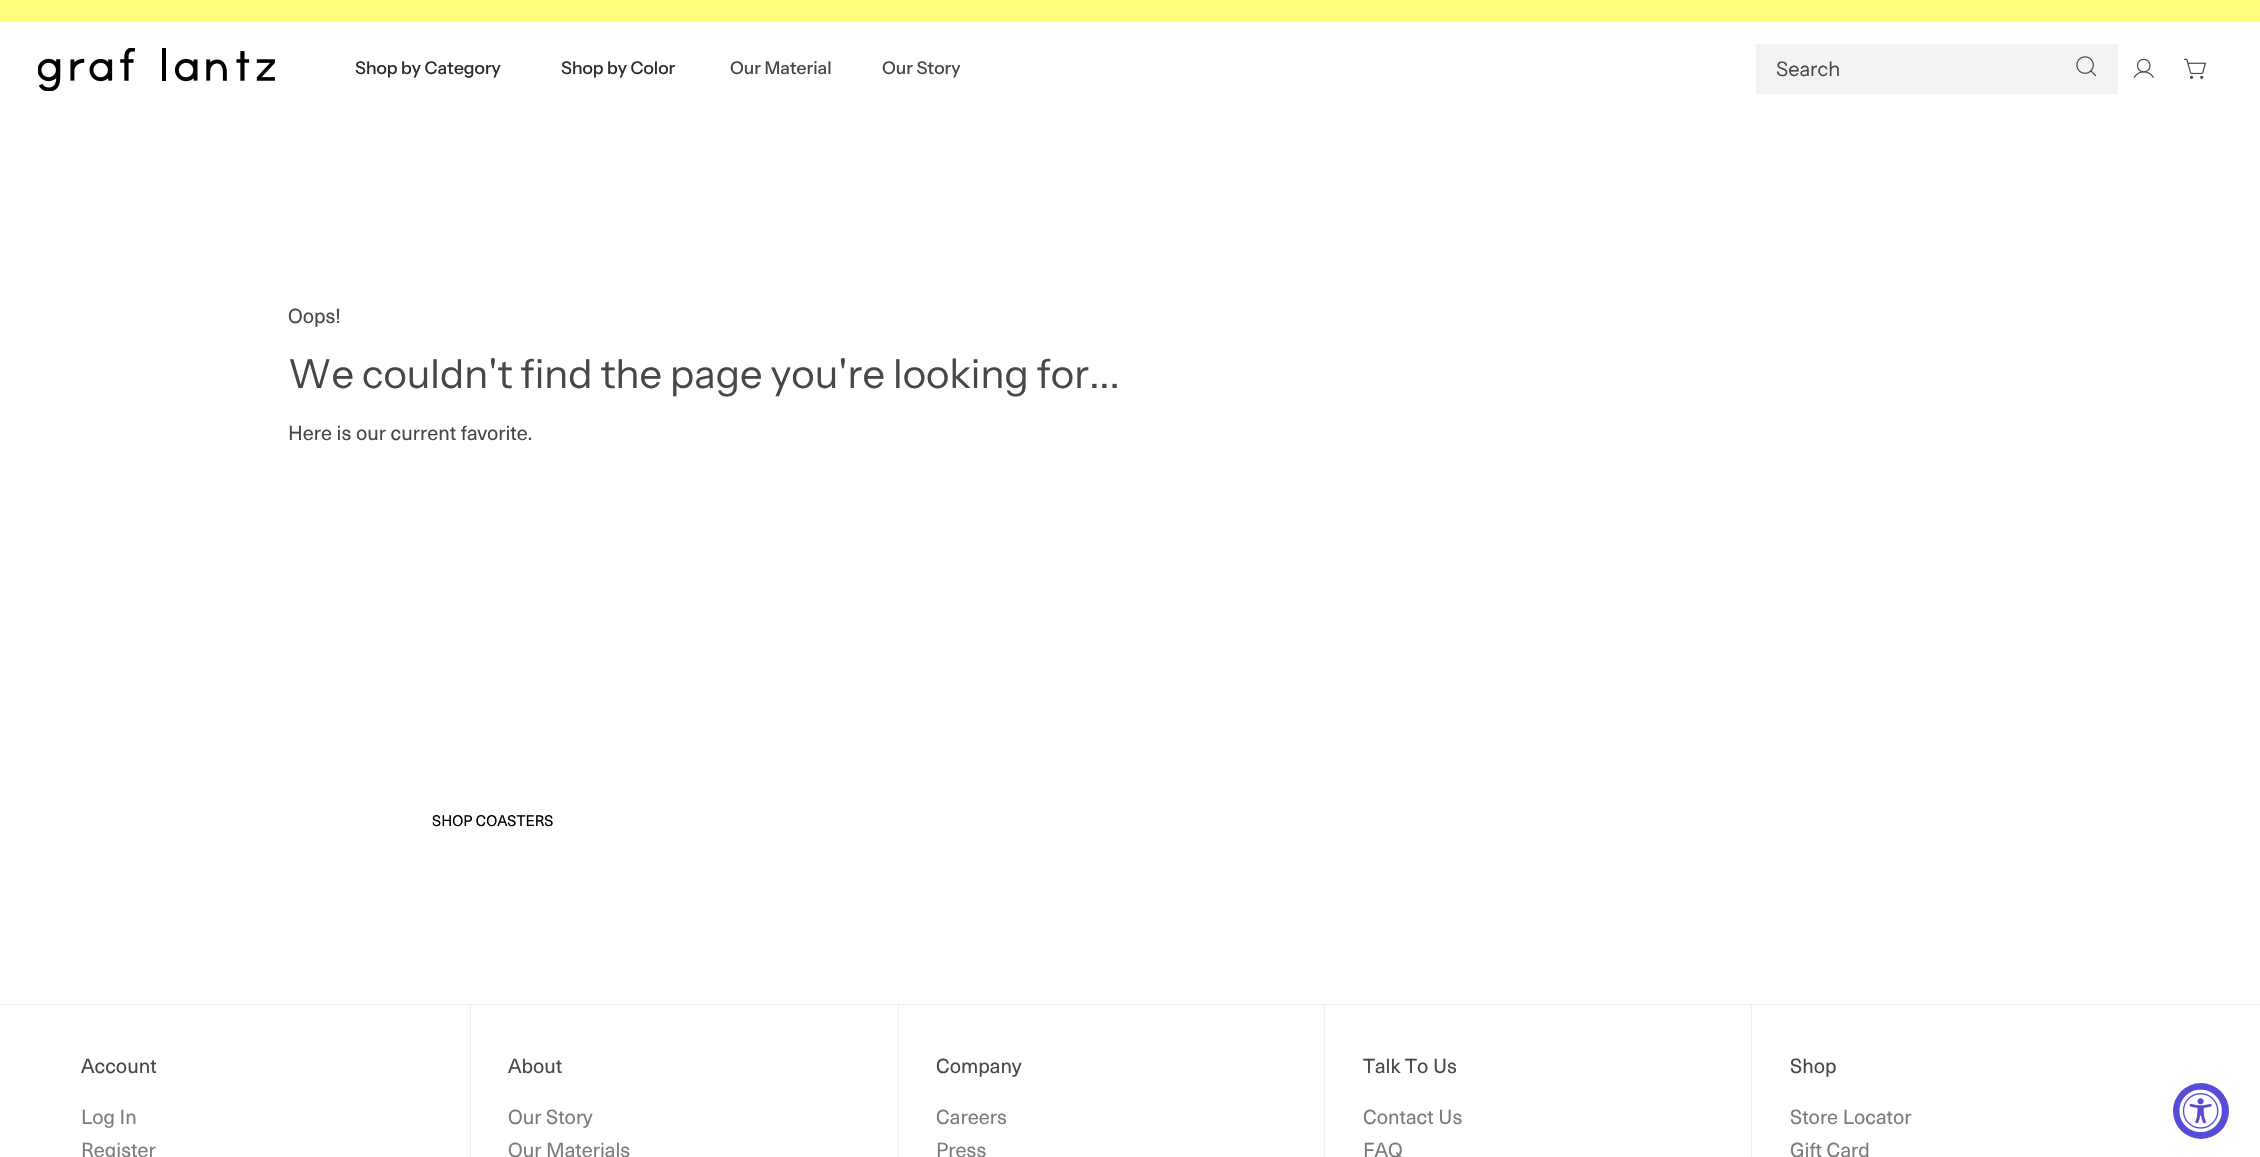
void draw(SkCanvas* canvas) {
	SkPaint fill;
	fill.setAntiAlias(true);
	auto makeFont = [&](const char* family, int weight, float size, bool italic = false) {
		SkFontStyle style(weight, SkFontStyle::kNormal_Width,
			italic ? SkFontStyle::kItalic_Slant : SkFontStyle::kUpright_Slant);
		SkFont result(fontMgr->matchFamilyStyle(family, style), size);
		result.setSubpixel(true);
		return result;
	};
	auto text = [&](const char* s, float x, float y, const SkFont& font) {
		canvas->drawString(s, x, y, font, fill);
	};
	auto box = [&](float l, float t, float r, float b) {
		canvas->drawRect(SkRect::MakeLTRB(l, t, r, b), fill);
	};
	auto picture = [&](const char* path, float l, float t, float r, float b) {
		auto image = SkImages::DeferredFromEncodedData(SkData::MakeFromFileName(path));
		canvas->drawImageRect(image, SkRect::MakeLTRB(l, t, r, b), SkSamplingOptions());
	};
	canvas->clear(0xFFFFFFFF);
	fill.setColor(0xFFFFFF7C);
	box(0, 0, 2260, 21);
	picture("image0.png", 38, 48, 275, 91);
	fill.setColor(0xFFF3F3F3);
	box(1756, 44, 2118, 94);
	picture("image1.png", 2076, 56, 2097, 77);
	picture("image2.png", 2133, 58, 2154, 78);
	picture("image3.png", 2184, 58, 2206, 79);
	fill.setColor(0xFFEEEEEE);
	box(0, 1004, 2260, 1005);
	box(470, 1005, 471, 1157);
	box(898, 1005, 899, 1157);
	box(1324, 1005, 1325, 1157);
	box(1751, 1005, 1752, 1157);
	fill.setColor(0xFF574CD5);
	canvas->drawCircle(2201, 1111, 28, fill);
	picture("image4.png", 2179, 1089, 2222, 1133);
	auto font1 = makeFont("Instrument Sans", 500, 17.5f);
	fill.setColor(0xFF2B2B2B);
	text("Shop by Category", 355, 74, font1);
	text("Shop by Color", 561, 74, font1);
	fill.setColor(0xFF474747);
	text("Our Material", 730, 74, font1);
	text("Our Story", 882, 74, font1);
	auto font2 = makeFont("Instrument Sans", 400, 20);
	text("Search", 1776, 76, font2);
	auto font3 = makeFont("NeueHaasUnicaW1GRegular", 400, 20);
	text("Oops!", 288, 323, font3);
	auto font4 = makeFont("Instrument Sans", 400, 40);
	text("We couldn't find the page you're looking for...", 288, 388, font4);
	text("Here is our current favorite.", 288, 440, font3);
	auto font5 = makeFont("NeueHaasUnicaW1GRegular", 400, 15);
	fill.setColor(0xFF000000);
	text("SHOP COASTERS", 432, 826, font5);
	fill.setColor(0xFF474747);
	text("Account", 81, 1073, font3);
	fill.setColor(0xFF7B7B7B);
	text("Log In", 81, 1124, font3);
	text("Register", 81, 1157, font3);
	fill.setColor(0xFF474747);
	text("About", 508, 1073, font3);
	fill.setColor(0xFF7B7B7B);
	text("Our Story", 508, 1124, font3);
	text("Our Materials", 508, 1157, font3);
	fill.setColor(0xFF474747);
	text("Company", 936, 1073, font3);
	fill.setColor(0xFF7B7B7B);
	text("Careers", 936, 1124, font3);
	text("Press", 936, 1157, font3);
	fill.setColor(0xFF474747);
	text("Talk To Us", 1363, 1073, font3);
	fill.setColor(0xFF7B7B7B);
	text("Contact Us", 1363, 1124, font3);
	text("FAQ", 1363, 1157, font3);
	fill.setColor(0xFF474747);
	text("Shop", 1790, 1073, font3);
	fill.setColor(0xFF7B7B7B);
	text("Store Locator", 1790, 1124, font3);
	text("Gift Card", 1790, 1157, font3);
}
